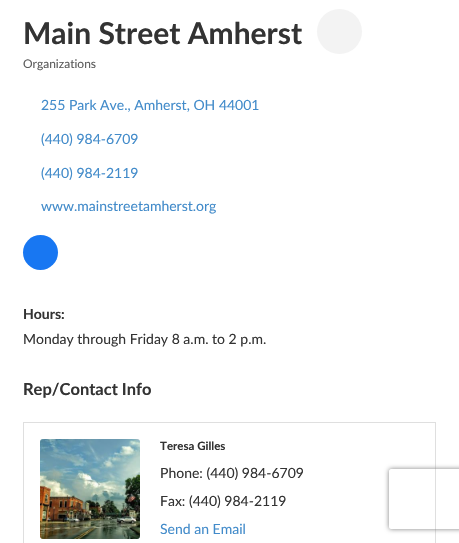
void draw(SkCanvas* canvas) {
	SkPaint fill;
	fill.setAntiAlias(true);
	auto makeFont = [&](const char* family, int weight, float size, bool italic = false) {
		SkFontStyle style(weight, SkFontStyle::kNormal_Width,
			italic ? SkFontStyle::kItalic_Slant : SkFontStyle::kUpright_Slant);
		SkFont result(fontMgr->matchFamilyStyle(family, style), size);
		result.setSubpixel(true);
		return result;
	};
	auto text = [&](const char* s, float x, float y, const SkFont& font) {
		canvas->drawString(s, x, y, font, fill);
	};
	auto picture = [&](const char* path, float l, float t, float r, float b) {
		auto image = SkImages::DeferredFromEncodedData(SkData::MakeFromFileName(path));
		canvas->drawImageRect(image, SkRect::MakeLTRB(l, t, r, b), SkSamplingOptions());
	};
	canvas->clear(0xFFFFFFFF);
	fill.setColor(0xFFF3F3F3);
	canvas->drawCircle(339.5f, 31.5f, 22.5f, fill);
	fill.setColor(0xFF1877F2);
	canvas->drawCircle(40.5f, 252.5f, 17.5f, fill);
	fill.setStyle(SkPaint::kStroke_Style);
	fill.setStrokeWidth(1);
	fill.setColor(0xFFDFDFDF);
	canvas->drawRect(SkRect::MakeLTRB(23.5f, 422.5f, 435.5f, 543.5f), fill);
	picture("image0.png", 40, 439, 140, 539);
	canvas->save();
	canvas->clipPath(SkPathBuilder(SkPathFillType::kEvenOdd).moveTo(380, 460).lineTo(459, 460).lineTo(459, 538).lineTo(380, 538).close().moveTo(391, 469).lineTo(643, 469).cubicTo(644, 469, 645, 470, 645, 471).lineTo(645, 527).cubicTo(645, 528, 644, 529, 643, 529).lineTo(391, 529).cubicTo(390, 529, 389, 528, 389, 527).lineTo(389, 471).cubicTo(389, 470, 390, 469, 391, 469).close().detach(), true);
	fill.setStyle(SkPaint::kFill_Style);
	fill.setColor(0xFF808080);
	fill.setMaskFilter(SkMaskFilter::MakeBlur(kNormal_SkBlurStyle, 2.5f));
	canvas->drawRoundRect(SkRect::MakeLTRB(389, 469, 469, 529), 2, 2, fill);
	fill.setMaskFilter(nullptr);
	canvas->restore();
	auto font1 = makeFont("Lato", 700, 30);
	fill.setColor(0xFF333333);
	text("Main Street Amherst", 23, 44, font1);
	auto font2 = makeFont("Lato", 400, 12);
	fill.setColor(0xFF5C5C5C);
	text("Organizations", 23, 68, font2);
	auto font3 = makeFont("Lato", 400, 14);
	fill.setColor(0xFF428BCA);
	text("255 Park Ave., Amherst, OH 44001", 41, 110, font3);
	text("(440) 984-6709", 41, 144, font3);
	text("(440) 984-2119", 41, 178, font3);
	text("www.mainstreetamherst.org", 41, 211, font3);
	auto font4 = makeFont("Lato", 700, 14);
	fill.setColor(0xFF333333);
	text("Hours:", 23, 319, font4);
	text("Monday through Friday 8 a.m. to 2 p.m.", 23, 344, font3);
	auto font5 = makeFont("Lato", 700, 16.5f);
	text("Rep/Contact Info", 23, 395, font5);
	auto font6 = makeFont("Lato", 700, 11.5f);
	text("Teresa Gilles", 160, 450, font6);
	text("Phone: (440) 984-6709", 160, 478, font3);
	text("Fax: (440) 984-2119", 160, 506, font3);
	fill.setColor(0xFF428BCA);
	text("Send an Email", 160, 534, font3);
}
